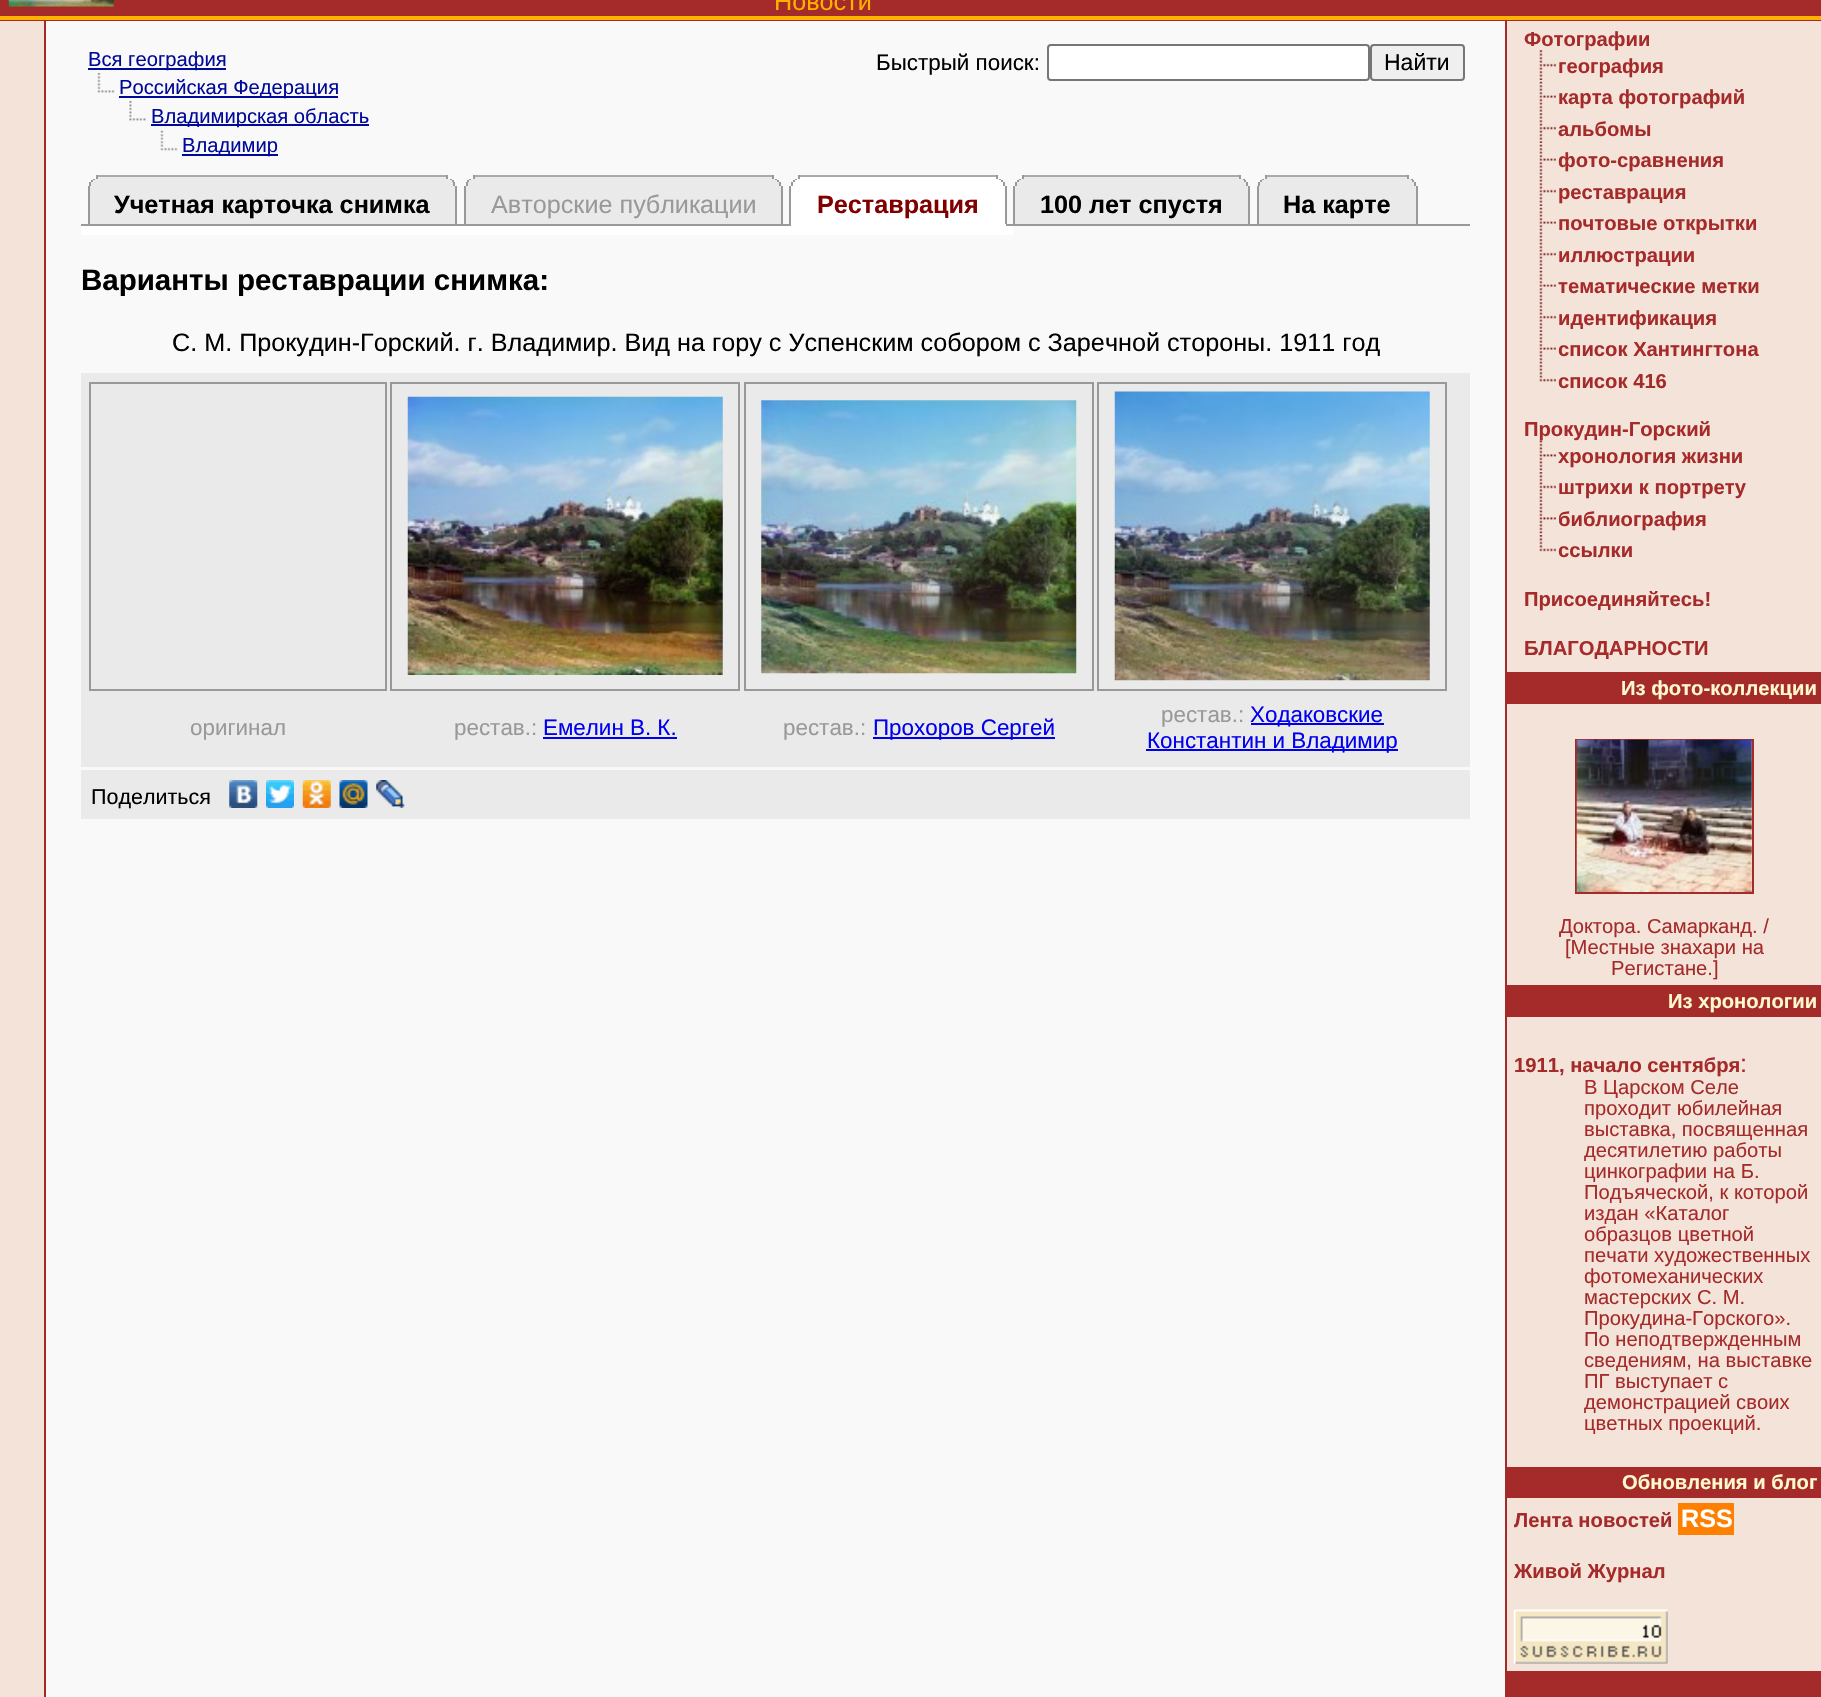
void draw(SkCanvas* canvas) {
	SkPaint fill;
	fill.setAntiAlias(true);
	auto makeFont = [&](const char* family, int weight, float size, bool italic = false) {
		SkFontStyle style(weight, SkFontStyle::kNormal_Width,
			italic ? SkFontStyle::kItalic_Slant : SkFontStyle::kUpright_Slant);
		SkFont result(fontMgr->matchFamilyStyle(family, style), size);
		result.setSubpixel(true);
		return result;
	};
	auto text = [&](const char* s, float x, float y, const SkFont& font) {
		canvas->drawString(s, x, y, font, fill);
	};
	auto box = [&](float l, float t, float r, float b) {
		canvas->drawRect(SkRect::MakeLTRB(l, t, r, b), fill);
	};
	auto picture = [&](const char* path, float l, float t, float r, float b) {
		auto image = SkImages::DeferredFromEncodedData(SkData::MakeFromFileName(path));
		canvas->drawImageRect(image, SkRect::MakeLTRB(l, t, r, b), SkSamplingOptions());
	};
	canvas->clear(0xFFA52A2A);
	fill.setColor(0xFFFFB100);
	box(0, 16, 175, 20);
	picture("image0.png", 8, 0, 114, 7);
	box(175, 16, 1821, 20);
	fill.setColor(0xFFF4E3D9);
	box(0, 21, 44, 1697);
	fill.setColor(0xFFF9F9F9);
	box(46, 21, 1505, 1697);
	fill.setColor(0xFF000999);
	box(88, 68, 226, 70);
	picture("image1.png", 97, 73, 115, 93);
	box(119, 96, 338, 98);
	picture("image2.png", 129, 101, 146, 121);
	box(151, 124, 369, 126);
	picture("image3.png", 160, 130, 178, 151);
	box(182, 154, 278, 156);
	fill.setColor(0xFFFFFFFF);
	canvas->drawRoundRect(SkRect::MakeLTRB(1048, 45, 1369, 80), 3, 3, fill);
	fill.setStyle(SkPaint::kStroke_Style);
	fill.setStrokeWidth(2);
	fill.setColor(0xFF767676);
	canvas->drawRoundRect(SkRect::MakeLTRB(1048, 45, 1369, 80), 3, 3, fill);
	fill.setStyle(SkPaint::kFill_Style);
	fill.setColor(0xFFEFEFEF);
	canvas->drawRoundRect(SkRect::MakeLTRB(1371, 45, 1464, 80), 3, 3, fill);
	fill.setStyle(SkPaint::kStroke_Style);
	fill.setColor(0xFF767676);
	canvas->drawRoundRect(SkRect::MakeLTRB(1371, 45, 1464, 80), 3, 3, fill);
	fill.setStyle(SkPaint::kFill_Style);
	fill.setColor(0xFFEAEAEA);
	box(96, 177, 448, 179);
	fill.setColor(0xFFAAAAAA);
	box(96, 175, 448, 177);
	fill.setColor(0xFF999999);
	box(446, 175, 448, 179);
	box(96, 175, 98, 179);
	fill.setColor(0xFFEAEAEA);
	box(93, 179, 452, 180);
	fill.setColor(0xFF999999);
	box(450, 179, 452, 180);
	box(93, 179, 95, 180);
	fill.setColor(0xFFEAEAEA);
	box(91, 180, 453, 182);
	fill.setColor(0xFF999999);
	box(452, 180, 454, 182);
	box(91, 180, 93, 182);
	fill.setColor(0xFFEAEAEA);
	box(89, 182, 455, 186);
	fill.setColor(0xFF999999);
	box(453, 182, 455, 186);
	box(89, 182, 91, 186);
	fill.setColor(0xFFEAEAEA);
	box(90, 186, 455, 224);
	fill.setColor(0xFF999999);
	box(455, 186, 457, 224);
	box(88, 186, 90, 224);
	fill.setColor(0xFFEAEAEA);
	box(473, 177, 774, 179);
	fill.setColor(0xFFAAAAAA);
	box(473, 175, 774, 177);
	fill.setColor(0xFF999999);
	box(772, 175, 774, 179);
	box(473, 175, 475, 179);
	fill.setColor(0xFFEAEAEA);
	box(469, 179, 777, 180);
	fill.setColor(0xFF999999);
	box(775, 179, 777, 180);
	box(469, 179, 471, 180);
	fill.setColor(0xFFEAEAEA);
	box(467, 180, 779, 182);
	fill.setColor(0xFF999999);
	box(777, 180, 779, 182);
	box(467, 180, 469, 182);
	fill.setColor(0xFFEAEAEA);
	box(466, 182, 781, 186);
	fill.setColor(0xFF999999);
	box(779, 182, 781, 186);
	box(466, 182, 468, 186);
	fill.setColor(0xFFEAEAEA);
	box(466, 186, 781, 224);
	fill.setColor(0xFF999999);
	box(781, 186, 783, 224);
	box(464, 186, 466, 224);
	fill.setColor(0xFFFFFFFF);
	box(798, 177, 998, 179);
	fill.setColor(0xFFAAAAAA);
	box(798, 175, 998, 177);
	fill.setColor(0xFF999999);
	box(996, 175, 998, 179);
	box(798, 175, 800, 179);
	fill.setColor(0xFFFFFFFF);
	box(795, 179, 1001, 180);
	fill.setColor(0xFF999999);
	box(999, 179, 1001, 180);
	box(795, 179, 797, 180);
	fill.setColor(0xFFFFFFFF);
	box(793, 180, 1003, 182);
	fill.setColor(0xFF999999);
	box(1001, 180, 1003, 182);
	box(793, 180, 795, 182);
	fill.setColor(0xFFFFFFFF);
	box(791, 182, 1005, 186);
	fill.setColor(0xFF999999);
	box(1003, 182, 1005, 186);
	box(791, 182, 793, 186);
	fill.setColor(0xFFFFFFFF);
	box(791, 186, 1005, 224);
	fill.setColor(0xFF999999);
	box(1005, 186, 1007, 226);
	fill.setColor(0xFFFFFFFF);
	box(789, 224, 1006, 226);
	fill.setColor(0xFF999999);
	box(789, 186, 791, 226);
	fill.setColor(0xFFEAEAEA);
	box(1022, 177, 1241, 179);
	fill.setColor(0xFFAAAAAA);
	box(1022, 175, 1241, 177);
	fill.setColor(0xFF999999);
	box(1239, 175, 1241, 179);
	box(1022, 175, 1024, 179);
	fill.setColor(0xFFEAEAEA);
	box(1019, 179, 1244, 180);
	fill.setColor(0xFF999999);
	box(1243, 179, 1245, 180);
	box(1019, 179, 1021, 180);
	fill.setColor(0xFFEAEAEA);
	box(1017, 180, 1246, 182);
	fill.setColor(0xFF999999);
	box(1244, 180, 1246, 182);
	box(1017, 180, 1019, 182);
	fill.setColor(0xFFEAEAEA);
	box(1015, 182, 1248, 186);
	fill.setColor(0xFF999999);
	box(1246, 182, 1248, 186);
	box(1015, 182, 1017, 186);
	fill.setColor(0xFFEAEAEA);
	box(1015, 186, 1248, 224);
	fill.setColor(0xFF999999);
	box(1248, 186, 1250, 224);
	box(1013, 186, 1015, 224);
	fill.setColor(0xFFEAEAEA);
	box(1265, 177, 1409, 179);
	fill.setColor(0xFFAAAAAA);
	box(1265, 175, 1409, 177);
	fill.setColor(0xFF999999);
	box(1407, 175, 1409, 179);
	box(1265, 175, 1267, 179);
	fill.setColor(0xFFEAEAEA);
	box(1262, 179, 1412, 180);
	fill.setColor(0xFF999999);
	box(1411, 179, 1413, 180);
	box(1262, 179, 1264, 180);
	fill.setColor(0xFFEAEAEA);
	box(1260, 180, 1414, 182);
	fill.setColor(0xFF999999);
	box(1412, 180, 1414, 182);
	box(1260, 180, 1262, 182);
	fill.setColor(0xFFEAEAEA);
	box(1258, 182, 1416, 186);
	fill.setColor(0xFF999999);
	box(1414, 182, 1416, 186);
	box(1258, 182, 1260, 186);
	fill.setColor(0xFFEAEAEA);
	box(1259, 186, 1416, 224);
	fill.setColor(0xFF999999);
	box(1416, 186, 1418, 224);
	box(1257, 186, 1259, 224);
	box(81, 224, 789, 226);
	box(1006, 224, 1470, 226);
	fill.setColor(0xFFFFFFFF);
	box(81, 226, 1013, 235);
	fill.setColor(0xFFEAEAEA);
	box(81, 373, 1470, 767);
	fill.setStyle(SkPaint::kStroke_Style);
	fill.setColor(0xFF999999);
	canvas->drawRect(SkRect::MakeLTRB(90, 383, 386, 690), fill);
	canvas->drawRect(SkRect::MakeLTRB(391, 383, 739, 690), fill);
	picture("image4.png", 407, 396, 723, 675);
	canvas->drawRect(SkRect::MakeLTRB(745, 383, 1093, 690), fill);
	picture("image5.png", 761, 400, 1077, 674);
	canvas->drawRect(SkRect::MakeLTRB(1098, 383, 1446, 690), fill);
	picture("image6.png", 1114, 391, 1430, 681);
	fill.setStyle(SkPaint::kFill_Style);
	fill.setColor(0xFF0000EE);
	box(543, 737, 677, 739);
	box(873, 737, 1055, 739);
	box(1251, 723, 1384, 725);
	box(1146, 749, 1398, 751);
	fill.setColor(0xFFEAEAEA);
	box(81, 770, 1470, 819);
	picture("image7.png", 229, 780, 258, 808);
	picture("image8.png", 266, 780, 294, 808);
	picture("image9.png", 302, 780, 331, 808);
	picture("image10.png", 339, 780, 368, 808);
	picture("image11.png", 376, 780, 405, 808);
	fill.setColor(0xFFF4E3D9);
	box(1507, 21, 1821, 1671);
	picture("image13.png", 1539, 81, 1556, 112);
	picture("image14.png", 1539, 113, 1556, 143);
	picture("image13.png", 1539, 144, 1556, 175);
	picture("image12.png", 1539, 176, 1556, 206);
	picture("image13.png", 1539, 207, 1556, 238);
	picture("image12.png", 1539, 239, 1556, 269);
	picture("image13.png", 1539, 270, 1556, 301);
	picture("image12.png", 1539, 302, 1556, 332);
	picture("image13.png", 1539, 333, 1556, 364);
	picture("image15.png", 1539, 365, 1556, 382);
	picture("image17.png", 1539, 472, 1556, 502);
	picture("image18.png", 1539, 503, 1556, 534);
	picture("image19.png", 1539, 535, 1556, 552);
	fill.setColor(0xFFA52A2A);
	box(1507, 672, 1821, 704);
	fill.setStyle(SkPaint::kStroke_Style);
	canvas->drawRect(SkRect::MakeLTRB(1576, 740, 1753, 893), fill);
	picture("image20.png", 1576, 739, 1752, 892);
	fill.setStyle(SkPaint::kFill_Style);
	box(1507, 985, 1821, 1017);
	box(1507, 1467, 1821, 1498);
	fill.setColor(0xFFFF8000);
	box(1678, 1503, 1734, 1535);
	picture("image21.png", 1513, 1609, 1668, 1664);
	auto font1 = makeFont("Liberation Sans", 400, 25.2f);
	fill.setColor(0xFFFFB100);
	text("Новости", 774, 10, font1);
	auto font2 = makeFont("Liberation Sans", 400, 20.2f);
	fill.setColor(0xFF000999);
	text("Вся география", 88, 66, font2);
	text("Российская Федерация", 119, 94, font2);
	text("Владимирская область", 151, 123, font2);
	text("Владимир", 182, 152, font2);
	auto font3 = makeFont("Liberation Sans", 400, 22.4f);
	fill.setColor(0xFF000000);
	text("Быстрый поиск:", 876, 70, font3);
	auto font4 = makeFont("Liberation Sans", 400, 23);
	text("Найти", 1384, 70, font4);
	auto font5 = makeFont("Liberation Sans", 700, 25.2f);
	text("Учетная карточка снимка", 114, 213, font5);
	fill.setColor(0xFF999999);
	text("Авторские публикации", 491, 213, font1);
	fill.setColor(0xFF800000);
	text("Реставрация", 817, 213, font5);
	fill.setColor(0xFF000000);
	text("100 лет спустя", 1040, 213, font5);
	text("На карте", 1283, 213, font5);
	auto font6 = makeFont("Liberation Sans", 700, 29.5f);
	text("Варианты реставрации снимка:", 81, 290, font6);
	text("С. М. Прокудин-Горский. г. Владимир. Вид на гору с Успенским собором с Заречной стороны. 1911 год", 172, 351, font1);
	fill.setColor(0xFF999999);
	text("оригинал", 190, 735, font3);
	text("рестав.:", 454, 735, font3);
	fill.setColor(0xFF0000EE);
	text("Емелин В. К.", 543, 735, font3);
	fill.setColor(0xFF999999);
	text("рестав.:", 783, 735, font3);
	fill.setColor(0xFF0000EE);
	text("Прохоров Сергей", 873, 735, font3);
	fill.setColor(0xFF999999);
	text("рестав.:", 1161, 722, font3);
	fill.setColor(0xFF0000EE);
	text("Ходаковские", 1250, 722, font3);
	text("Константин и Владимир", 1147, 748, font3);
	auto font7 = makeFont("Liberation Sans", 400, 21.5f);
	fill.setColor(0xFF000000);
	text("Поделиться", 91, 804, font7);
	auto font8 = makeFont("Liberation Sans", 700, 20.2f);
	fill.setColor(0xFFA52A2A);
	text("Фотографии", 1524, 46, font8);
	picture("image12.png", 1539, 50, 1556, 80);
	text("география", 1558, 73, font8);
	text("карта фотографий", 1558, 104, font8);
	text("альбомы", 1558, 136, font8);
	text("фото-сравнения", 1558, 167, font8);
	text("реставрация", 1558, 199, font8);
	text("почтовые открытки", 1558, 230, font8);
	text("иллюстрации", 1558, 262, font8);
	text("тематические метки", 1558, 293, font8);
	text("идентификация", 1558, 325, font8);
	text("список Хантингтона", 1558, 356, font8);
	text("список 416", 1558, 388, font8);
	text("Прокудин-Горский", 1524, 436, font8);
	picture("image16.png", 1539, 440, 1556, 471);
	text("хронология жизни", 1558, 463, font8);
	text("штрихи к портрету", 1558, 494, font8);
	text("библиография", 1558, 526, font8);
	text("ссылки", 1558, 557, font8);
	text("Присоединяйтесь!", 1524, 606, font8);
	text("БЛАГОДАРНОСТИ", 1524, 655, font8);
	fill.setColor(0xFFFFFACD);
	text("Из фото-коллекции", 1621, 695, font8);
	fill.setColor(0xFFA52A2A);
	text("Доктора. Самарканд. /", 1559, 933, font2);
	text("[Местные знахари на", 1565, 954, font2);
	text("Регистане.]", 1611, 975, font2);
	fill.setColor(0xFFFFFACD);
	text("Из хронологии", 1668, 1008, font8);
	fill.setColor(0xFFA52A2A);
	text("1911, начало сентября", 1514, 1072, font8);
	text(":", 1740, 1072, font1);
	text("В Царском Селе", 1584, 1094, font2);
	text("проходит юбилейная", 1584, 1115, font2);
	text("выставка, посвященная", 1584, 1136, font2);
	text("десятилетию работы", 1584, 1157, font2);
	text("цинкографии на Б.", 1584, 1178, font2);
	text("Подъяческой, к которой", 1584, 1199, font2);
	text("издан «Каталог", 1584, 1220, font2);
	text("образцов цветной", 1584, 1241, font2);
	text("печати художественных", 1584, 1262, font2);
	text("фотомеханических", 1584, 1283, font2);
	text("мастерских С. М.", 1584, 1304, font2);
	text("Прокудина-Горского».", 1584, 1325, font2);
	text("По неподтвержденным", 1584, 1346, font2);
	text("сведениям, на выставке", 1584, 1367, font2);
	text("ПГ выступает с", 1584, 1388, font2);
	text("демонстрацией своих", 1584, 1409, font2);
	text("цветных проекций.", 1584, 1430, font2);
	fill.setColor(0xFFFFFACD);
	text("Обновления и блог", 1622, 1489, font8);
	fill.setColor(0xFFA52A2A);
	text("Лента новостей", 1514, 1527, font8);
	fill.setColor(0xFFFFFFFF);
	text("RSS", 1681, 1527, font5);
	fill.setColor(0xFFA52A2A);
	text("Живой Журнал", 1514, 1578, font8);
}
